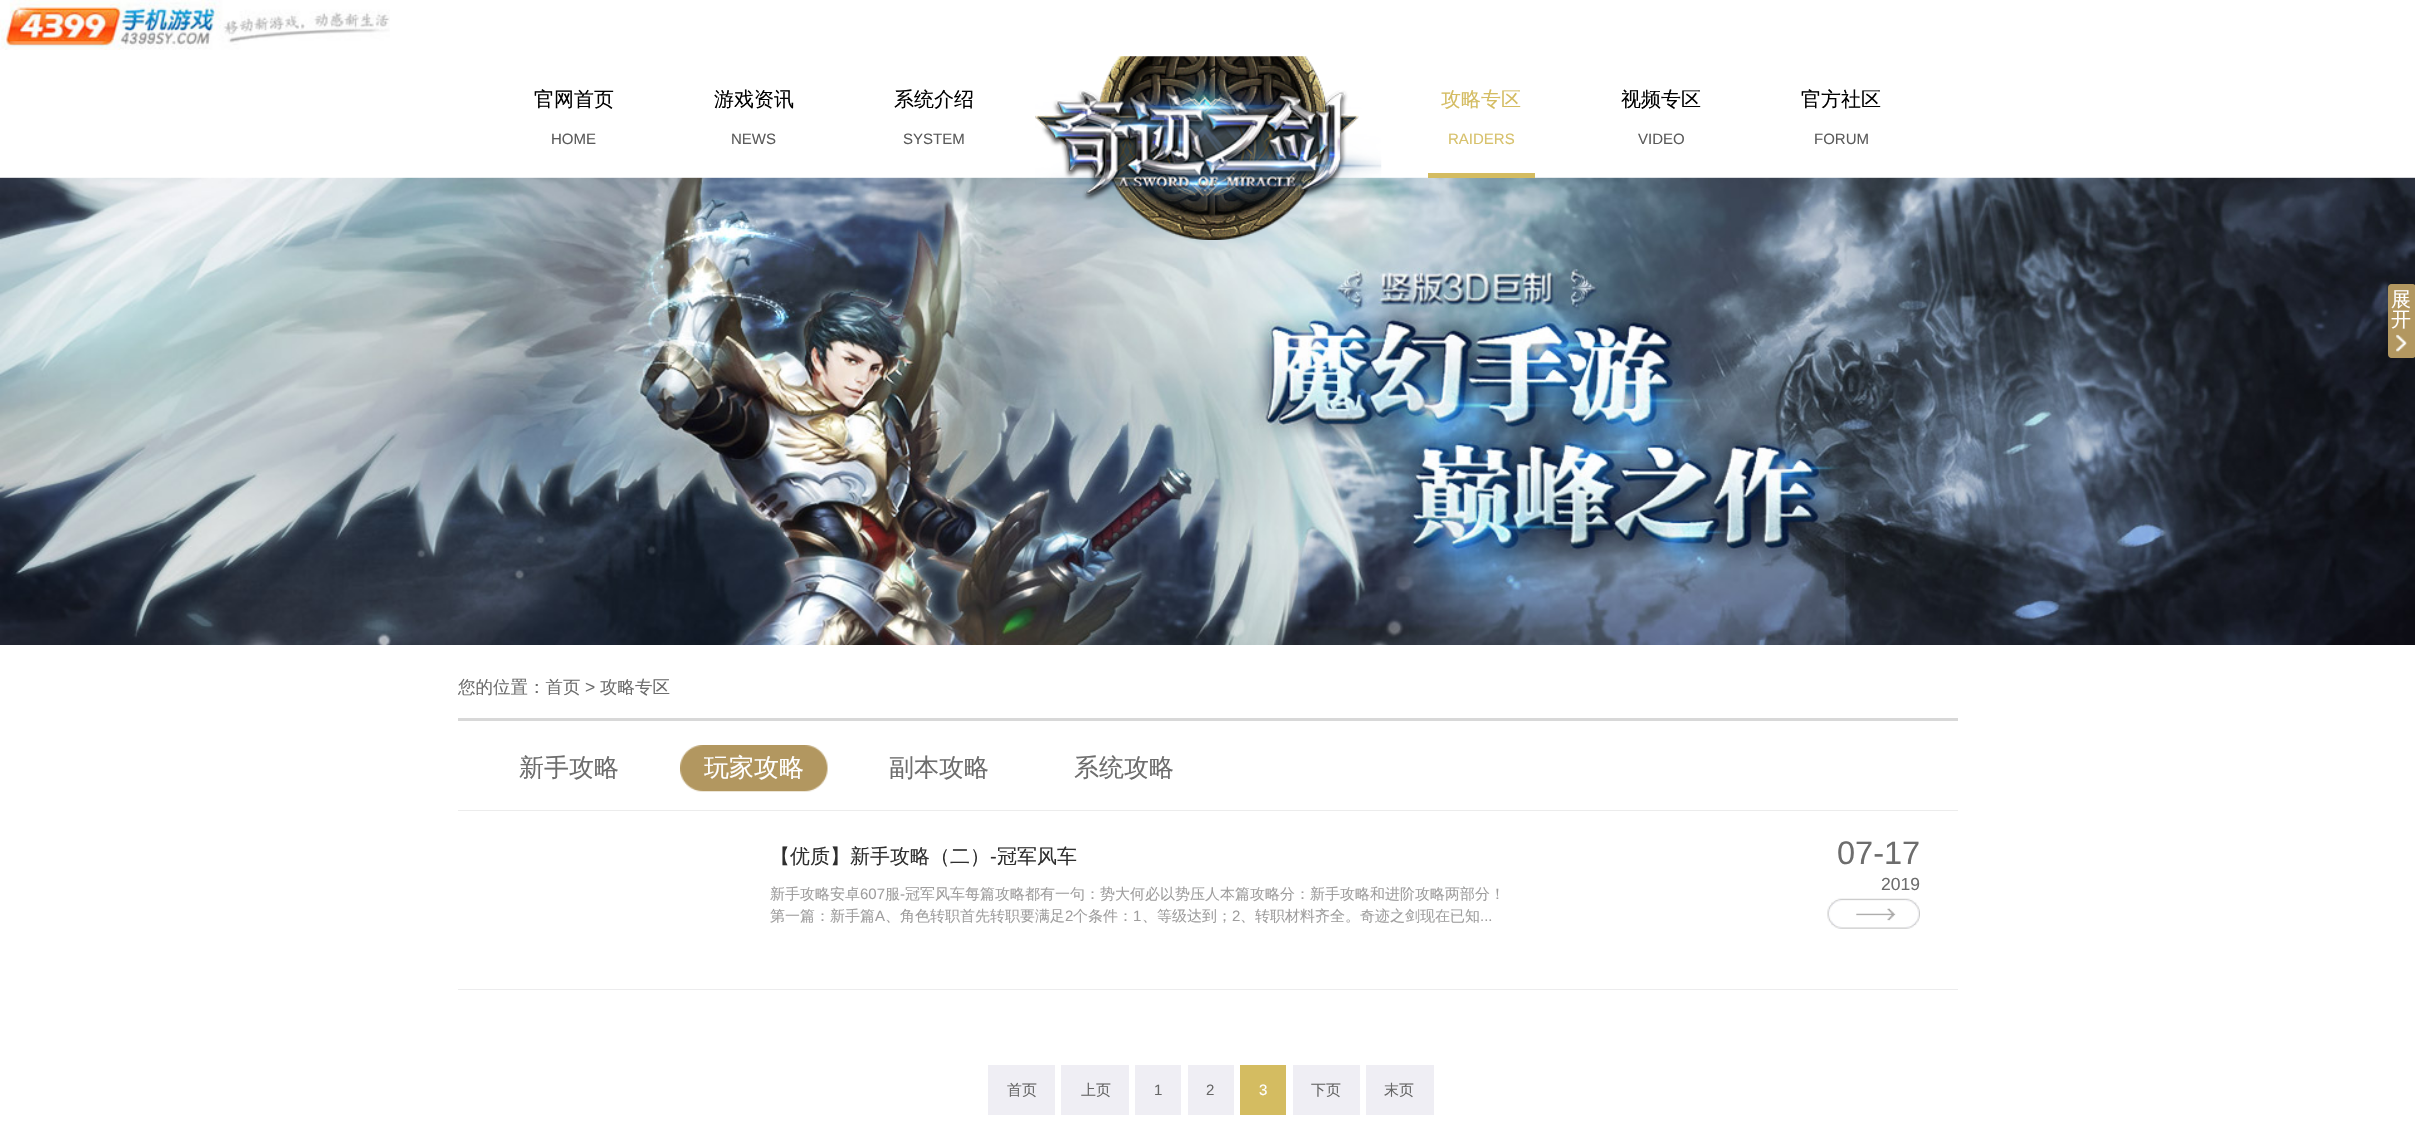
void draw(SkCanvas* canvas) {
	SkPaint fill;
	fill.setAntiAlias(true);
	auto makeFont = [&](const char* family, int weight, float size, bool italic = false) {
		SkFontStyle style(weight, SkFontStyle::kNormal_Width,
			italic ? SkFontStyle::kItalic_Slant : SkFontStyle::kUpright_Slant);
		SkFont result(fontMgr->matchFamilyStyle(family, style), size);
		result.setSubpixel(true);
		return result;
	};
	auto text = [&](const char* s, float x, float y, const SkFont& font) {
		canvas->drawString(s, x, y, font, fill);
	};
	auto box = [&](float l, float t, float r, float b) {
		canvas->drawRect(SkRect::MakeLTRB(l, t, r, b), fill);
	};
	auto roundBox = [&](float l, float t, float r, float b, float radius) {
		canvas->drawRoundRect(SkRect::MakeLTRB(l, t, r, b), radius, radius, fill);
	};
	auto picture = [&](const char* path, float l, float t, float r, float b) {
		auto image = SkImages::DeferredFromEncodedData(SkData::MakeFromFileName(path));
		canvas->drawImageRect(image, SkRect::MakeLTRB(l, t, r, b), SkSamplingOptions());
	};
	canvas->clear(0xFFFFFFFF);
	picture("image0.png", 0, 0, 390, 50);
	picture("image3.png", 0, 177, 2415, 645);
	fill.setColor(0x99FFFFFF);
	box(0, 177, 2415, 178);
	picture("image1.png", 1035, 56, 1382, 240);
	fill.setColor(0xFFD4BC61);
	box(1428, 173, 1535, 178);
	fill.setColor(0xFFB29760);
	roundBox(2389, 284, 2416, 358, 4);
	roundBox(2388, 284, 2415, 358, 4);
	picture("image2.png", 2396, 334, 2407, 352);
	fill.setColor(0xFFD8D8D8);
	box(458, 718, 1958, 721);
	fill.setColor(0xFFECECEC);
	box(458, 810, 1958, 811);
	picture("image4.png", 680, 745, 828, 792);
	fill.setColor(0xFFECECED);
	box(458, 989, 1958, 990);
	picture("image5.png", 1827, 898, 1920, 929);
	fill.setColor(0xFFEFEEF4);
	box(988, 1065, 1055, 1115);
	box(1061, 1065, 1129, 1115);
	box(1135, 1065, 1181, 1115);
	box(1188, 1065, 1234, 1115);
	fill.setColor(0xFFD4BC61);
	box(1240, 1065, 1286, 1115);
	fill.setColor(0xFFEFEEF4);
	box(1293, 1065, 1360, 1115);
	box(1366, 1065, 1434, 1115);
	auto font1 = makeFont("WenQuanYi Zen Hei", 500, 20);
	fill.setColor(0xFF010101);
	text("官网首页", 534, 106, font1);
	auto font2 = makeFont("Liberation Sans", 400, 15);
	fill.setColor(0xFF5B5B5B);
	text("HOME", 551, 144, font2);
	fill.setColor(0xFF010101);
	text("游戏资讯", 714, 106, font1);
	fill.setColor(0xFF5B5B5B);
	text("NEWS", 731, 144, font2);
	fill.setColor(0xFF010101);
	text("系统介绍", 894, 106, font1);
	fill.setColor(0xFF5B5B5B);
	text("SYSTEM", 903, 144, font2);
	fill.setColor(0xFFD4BC61);
	text("攻略专区", 1441, 106, font1);
	fill.setColor(0xFFD7C16C);
	text("RAIDERS", 1448, 144, font2);
	fill.setColor(0xFF010101);
	text("视频专区", 1621, 106, font1);
	fill.setColor(0xFF5B5B5B);
	text("VIDEO", 1638, 144, font2);
	fill.setColor(0xFF010101);
	text("官方社区", 1801, 106, font1);
	fill.setColor(0xFF5B5B5B);
	text("FORUM", 1814, 144, font2);
	fill.setColor(0xFFFFFFFF);
	text("展", 2391, 306, font1);
	text("开", 2391, 326, font1);
	auto font3 = makeFont("WenQuanYi Zen Hei", 500, 17.5f);
	fill.setColor(0xFF6D6D6D);
	text("您的位置：首页", 458, 693, font3);
	auto font4 = makeFont("Liberation Sans", 400, 17.5f);
	text(">", 585, 693, font4);
	text("攻略专区", 600, 693, font3);
	auto font5 = makeFont("WenQuanYi Zen Hei", 500, 25);
	text("新手攻略", 519, 776, font5);
	fill.setColor(0xFFFFFFFF);
	text("玩家攻略", 704, 776, font5);
	fill.setColor(0xFF6D6D6D);
	text("副本攻略", 889, 776, font5);
	text("系统攻略", 1074, 776, font5);
	fill.setColor(0xFF2F2F2F);
	text("【优质】新手攻略（二）", 770, 863, font1);
	auto font6 = makeFont("Liberation Sans", 400, 20);
	text("-", 990, 863, font6);
	text("冠军风车", 997, 863, font1);
	auto font7 = makeFont("Liberation Sans", 400, 32.5f);
	fill.setColor(0xFF6D6D6D);
	text("07-17", 1837, 864, font7);
	text("2019", 1881, 890, font4);
	auto font8 = makeFont("WenQuanYi Zen Hei", 500, 15);
	fill.setColor(0xFF9F9E9E);
	text("新手攻略安卓", 770, 899, font8);
	text("607", 860, 899, font2);
	text("服", 885, 899, font8);
	text("-", 900, 899, font2);
	text("冠军风车每篇攻略都有一句：势大何必以势压人本篇攻略分：新手攻略和进阶攻略两部分！", 905, 899, font8);
	text("第一篇：新手篇", 770, 921, font8);
	text("A", 875, 921, font2);
	text("、角色转职首先转职要满足", 885, 921, font8);
	text("2", 1065, 921, font2);
	text("个条件：", 1073, 921, font8);
	text("1", 1133, 921, font2);
	text("、等级达到；", 1142, 921, font8);
	text("2", 1232, 921, font2);
	text("、转职材料齐全。奇迹之剑现在已知", 1240, 921, font8);
	text("...", 1480, 921, font2);
	fill.setColor(0xFF666666);
	text("首页", 1007, 1095, font8);
	text("上页", 1081, 1095, font8);
	text("1", 1154, 1095, font2);
	text("2", 1206, 1095, font2);
	fill.setColor(0xFFFFFFFF);
	text("3", 1259, 1095, font2);
	fill.setColor(0xFF666666);
	text("下页", 1311, 1095, font8);
	text("末页", 1384, 1095, font8);
}
